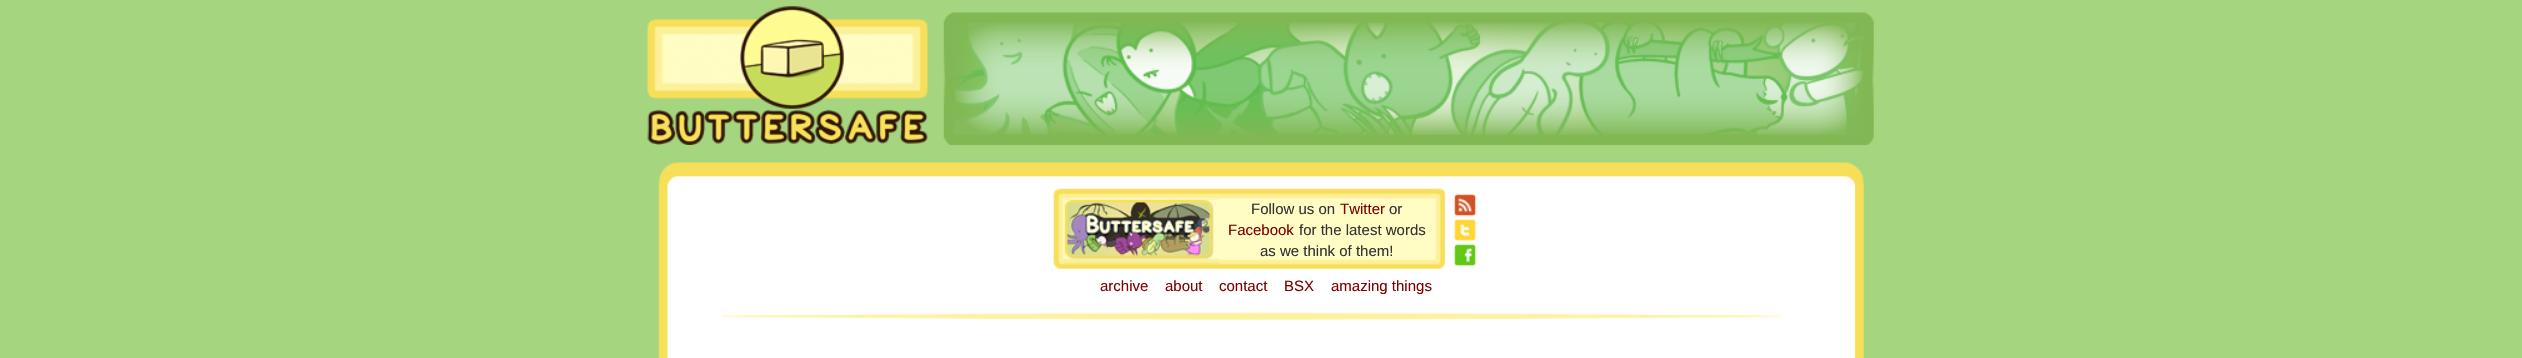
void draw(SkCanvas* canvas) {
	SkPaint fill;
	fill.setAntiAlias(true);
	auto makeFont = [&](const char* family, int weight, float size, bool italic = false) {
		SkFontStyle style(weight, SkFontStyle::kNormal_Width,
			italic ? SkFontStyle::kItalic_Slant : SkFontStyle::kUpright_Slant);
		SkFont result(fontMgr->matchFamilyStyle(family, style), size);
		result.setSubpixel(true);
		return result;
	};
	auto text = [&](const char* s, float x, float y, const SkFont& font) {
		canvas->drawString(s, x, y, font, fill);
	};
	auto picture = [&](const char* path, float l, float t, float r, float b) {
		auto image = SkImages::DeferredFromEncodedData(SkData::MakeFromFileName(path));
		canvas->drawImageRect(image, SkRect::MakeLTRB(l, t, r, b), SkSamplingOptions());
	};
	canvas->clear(0xFFA5D57F);
	picture("image0.png", 658, 320, 1864, 358);
	picture("image1.png", 658, 12, 1874, 320);
	picture("image2.png", 647, 6, 928, 145);
	picture("image3.png", 1063, 199, 1219, 264);
	picture("image4.png", 1453, 193, 1477, 217);
	picture("image5.png", 1453, 218, 1477, 242);
	picture("image6.png", 1453, 243, 1477, 267);
	auto font1 = makeFont("Liberation Sans", 400, 15);
	fill.setColor(0xFF333333);
	text("Follow us on", 1251, 214, font1);
	fill.setColor(0xFF7F0000);
	text("Twitter", 1340, 214, font1);
	fill.setColor(0xFF333333);
	text("or", 1389, 214, font1);
	fill.setColor(0xFF7F0000);
	text("Facebook", 1228, 235, font1);
	fill.setColor(0xFF333333);
	text("for the latest words", 1299, 235, font1);
	text("as we think of them!", 1260, 256, font1);
	fill.setColor(0xFF7F0000);
	text("archive", 1100, 291, font1);
	text("about", 1165, 291, font1);
	text("contact", 1219, 291, font1);
	text("BSX", 1284, 291, font1);
	text("amazing things", 1331, 291, font1);
}
